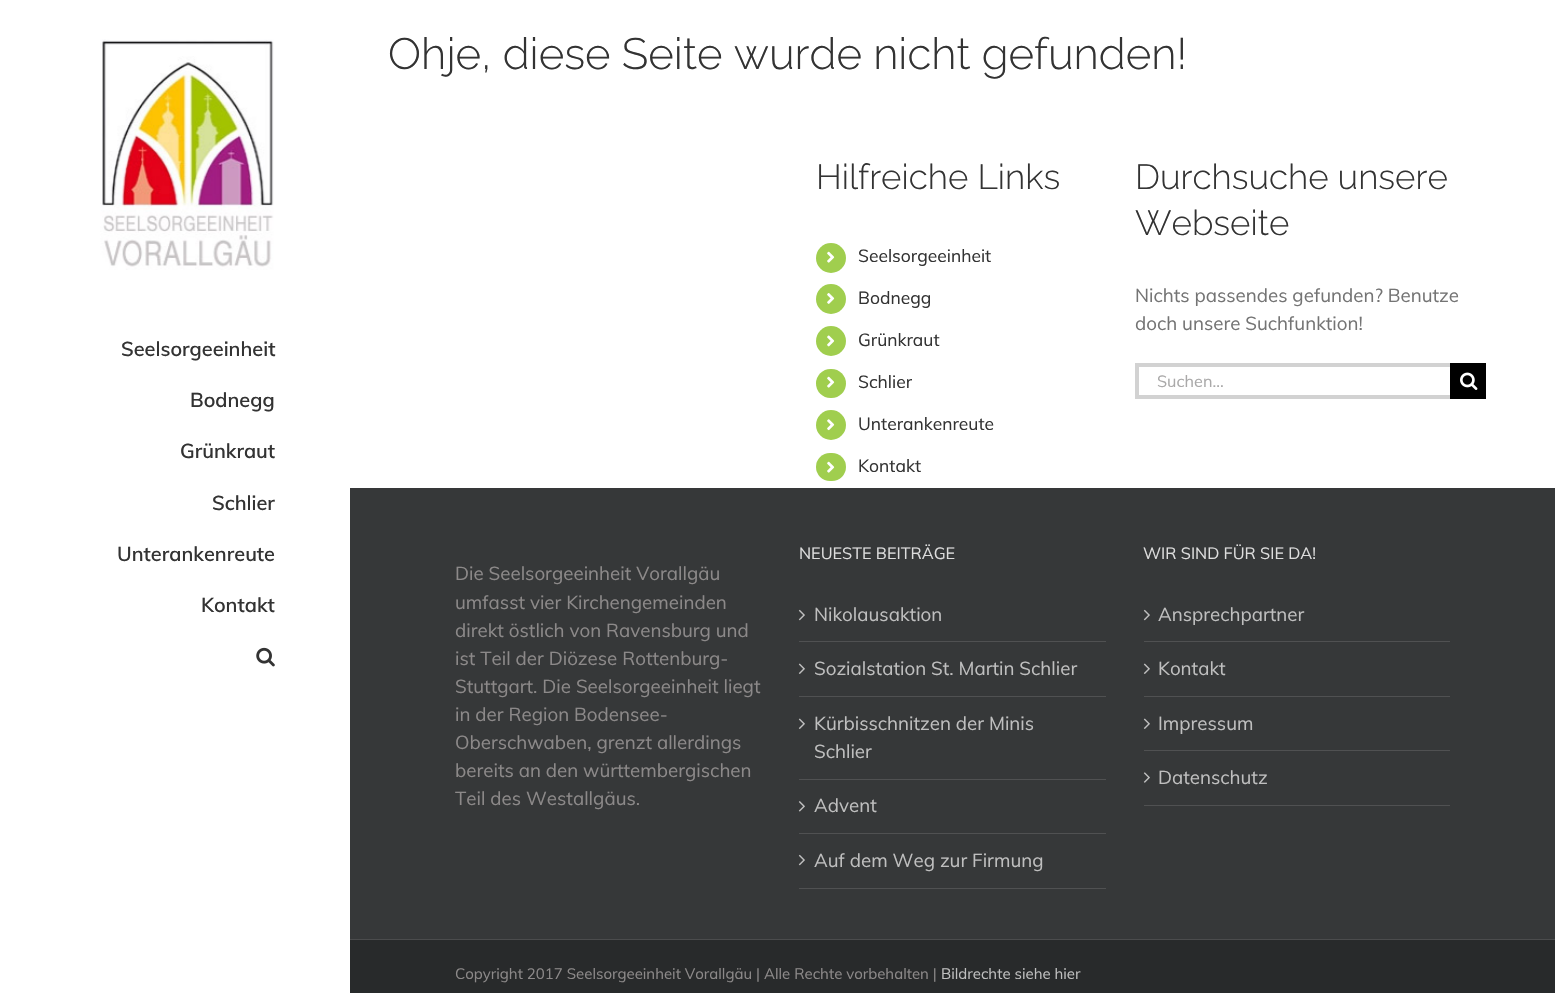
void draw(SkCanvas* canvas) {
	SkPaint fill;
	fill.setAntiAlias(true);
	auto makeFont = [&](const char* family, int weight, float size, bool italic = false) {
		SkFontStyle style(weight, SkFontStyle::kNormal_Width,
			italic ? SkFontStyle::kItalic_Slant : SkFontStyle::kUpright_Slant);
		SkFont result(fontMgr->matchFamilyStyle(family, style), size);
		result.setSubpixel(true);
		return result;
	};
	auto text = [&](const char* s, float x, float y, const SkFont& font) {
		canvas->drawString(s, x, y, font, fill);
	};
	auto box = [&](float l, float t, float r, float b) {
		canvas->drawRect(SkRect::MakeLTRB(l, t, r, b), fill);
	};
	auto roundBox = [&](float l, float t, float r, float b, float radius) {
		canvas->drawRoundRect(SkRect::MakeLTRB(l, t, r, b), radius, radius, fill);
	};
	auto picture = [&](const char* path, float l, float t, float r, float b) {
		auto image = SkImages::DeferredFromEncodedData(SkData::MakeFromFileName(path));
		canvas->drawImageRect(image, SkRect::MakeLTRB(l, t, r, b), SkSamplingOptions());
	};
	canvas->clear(0xFFFFFFFF);
	picture("image0.png", 100, 39, 274, 270);
	picture("image1.png", 256, 647, 275, 667);
	fill.setColor(0xFFA0CE4E);
	canvas->drawCircle(831, 258, 15, fill);
	picture("image2.png", 827, 251, 835, 263);
	canvas->drawCircle(831, 299, 15, fill);
	picture("image3.png", 827, 293, 835, 304);
	canvas->drawCircle(831, 341, 15, fill);
	picture("image4.png", 827, 335, 835, 347);
	roundBox(816, 369, 846, 398, 14.5f);
	picture("image2.png", 827, 376, 835, 388);
	canvas->drawCircle(831, 425, 15, fill);
	picture("image5.png", 827, 419, 835, 431);
	roundBox(816, 453, 846, 481, 14);
	picture("image2.png", 827, 461, 835, 473);
	fill.setColor(0xFFD2D2D2);
	box(1135, 363, 1450, 367);
	box(1135, 395, 1450, 399);
	box(1135, 363, 1139, 399);
	fill.setColor(0xFF000000);
	box(1450, 363, 1486, 399);
	picture("image6.png", 1460, 372, 1478, 390);
	fill.setColor(0xFF363839);
	box(350, 488, 1555, 939);
	fill.setColor(0xFF505152);
	box(799, 641, 1106, 642);
	picture("image7.png", 798, 609, 805, 621);
	box(799, 696, 1106, 697);
	picture("image8.png", 798, 663, 805, 674);
	box(799, 779, 1106, 780);
	picture("image8.png", 798, 718, 805, 729);
	box(799, 833, 1106, 834);
	picture("image9.png", 798, 801, 805, 812);
	box(799, 888, 1106, 889);
	picture("image7.png", 798, 854, 805, 866);
	box(1144, 641, 1450, 642);
	picture("image7.png", 1143, 609, 1150, 621);
	box(1144, 696, 1450, 697);
	picture("image8.png", 1143, 663, 1150, 674);
	box(1144, 750, 1450, 751);
	picture("image8.png", 1143, 718, 1150, 729);
	box(1144, 805, 1450, 806);
	picture("image10.png", 1143, 772, 1150, 783);
	fill.setColor(0xFF282A2B);
	box(350, 940, 1555, 993);
	fill.setColor(0xFF4B4C4D);
	box(350, 939, 1555, 940);
	auto font1 = makeFont("Muli", 600, 20);
	fill.setColor(0xFF333333);
	text("Seelsorgeeinheit", 121, 356, font1);
	text("Bodnegg", 190, 407, font1);
	text("Grünkraut", 180, 458, font1);
	text("Schlier", 212, 510, font1);
	text("Unterankenreute", 117, 561, font1);
	text("Kontakt", 201, 612, font1);
	auto font2 = makeFont("Raleway", 100, 43.75f);
	text("Ohje, diese Seite wurde nicht gefunden!", 388, 69, font2);
	auto font3 = makeFont("Raleway", 100, 35);
	text("Hilfreiche Links", 816, 189, font3);
	auto font4 = makeFont("Muli", 400, 17.5f);
	text("Seelsorgeeinheit", 858, 262, font4);
	text("Bodnegg", 858, 304, font4);
	text("Grünkraut", 858, 346, font4);
	text("Schlier", 858, 388, font4);
	text("Unterankenreute", 858, 430, font4);
	text("Kontakt", 858, 472, font4);
	text("Durchsuche unsere", 1135, 189, font3);
	text("Webseite", 1135, 235, font3);
	auto font5 = makeFont("Muli", 400, 18.75f);
	fill.setColor(0xFF747474);
	text("Nichts passendes gefunden? Benutze", 1135, 302, font5);
	text("doch unsere Suchfunktion!", 1135, 330, font5);
	auto font6 = makeFont("Muli", 400, 16.25f);
	fill.setColor(0xFFAAA9A9);
	text("Suchen...", 1157, 387, font6);
	fill.setColor(0xFF8C8989);
	text("Die Seelsorgeeinheit Vorallgäu", 455, 580, font5);
	text("umfasst vier Kirchengemeinden", 455, 609, font5);
	text("direkt östlich von Ravensburg und", 455, 637, font5);
	text("ist Teil der Diözese Rottenburg-", 455, 665, font5);
	text("Stuttgart. Die Seelsorgeeinheit liegt", 455, 693, font5);
	text("in der Region Bodensee-", 455, 721, font5);
	text("Oberschwaben, grenzt allerdings", 455, 749, font5);
	text("bereits an den württembergischen", 455, 777, font5);
	text("Teil des Westallgäus.", 455, 805, font5);
	fill.setColor(0xFFDDDDDD);
	text("NEUESTE BEITRÄGE", 799, 559, font6);
	fill.setColor(0xFFBFBFBF);
	text("Nikolausaktion", 814, 621, font5);
	text("Sozialstation St. Martin Schlier", 814, 675, font5);
	text("Kürbisschnitzen der Minis", 814, 730, font5);
	text("Schlier", 814, 758, font5);
	text("Advent", 814, 812, font5);
	text("Auf dem Weg zur Firmung", 814, 867, font5);
	fill.setColor(0xFFDDDDDD);
	text("WIR SIND FÜR SIE DA!", 1143, 559, font6);
	fill.setColor(0xFFBFBFBF);
	text("Ansprechpartner", 1158, 621, font5);
	text("Kontakt", 1158, 675, font5);
	text("Impressum", 1158, 730, font5);
	text("Datenschutz", 1158, 784, font5);
	auto font7 = makeFont("Muli", 400, 15);
	fill.setColor(0xFF8C8989);
	text("Copyright 2017 Seelsorgeeinheit Vorallgäu | Alle Rechte vorbehalten |", 455, 979, font7);
	fill.setColor(0xFFBFBFBF);
	text("Bildrechte siehe hier", 941, 979, font7);
}
